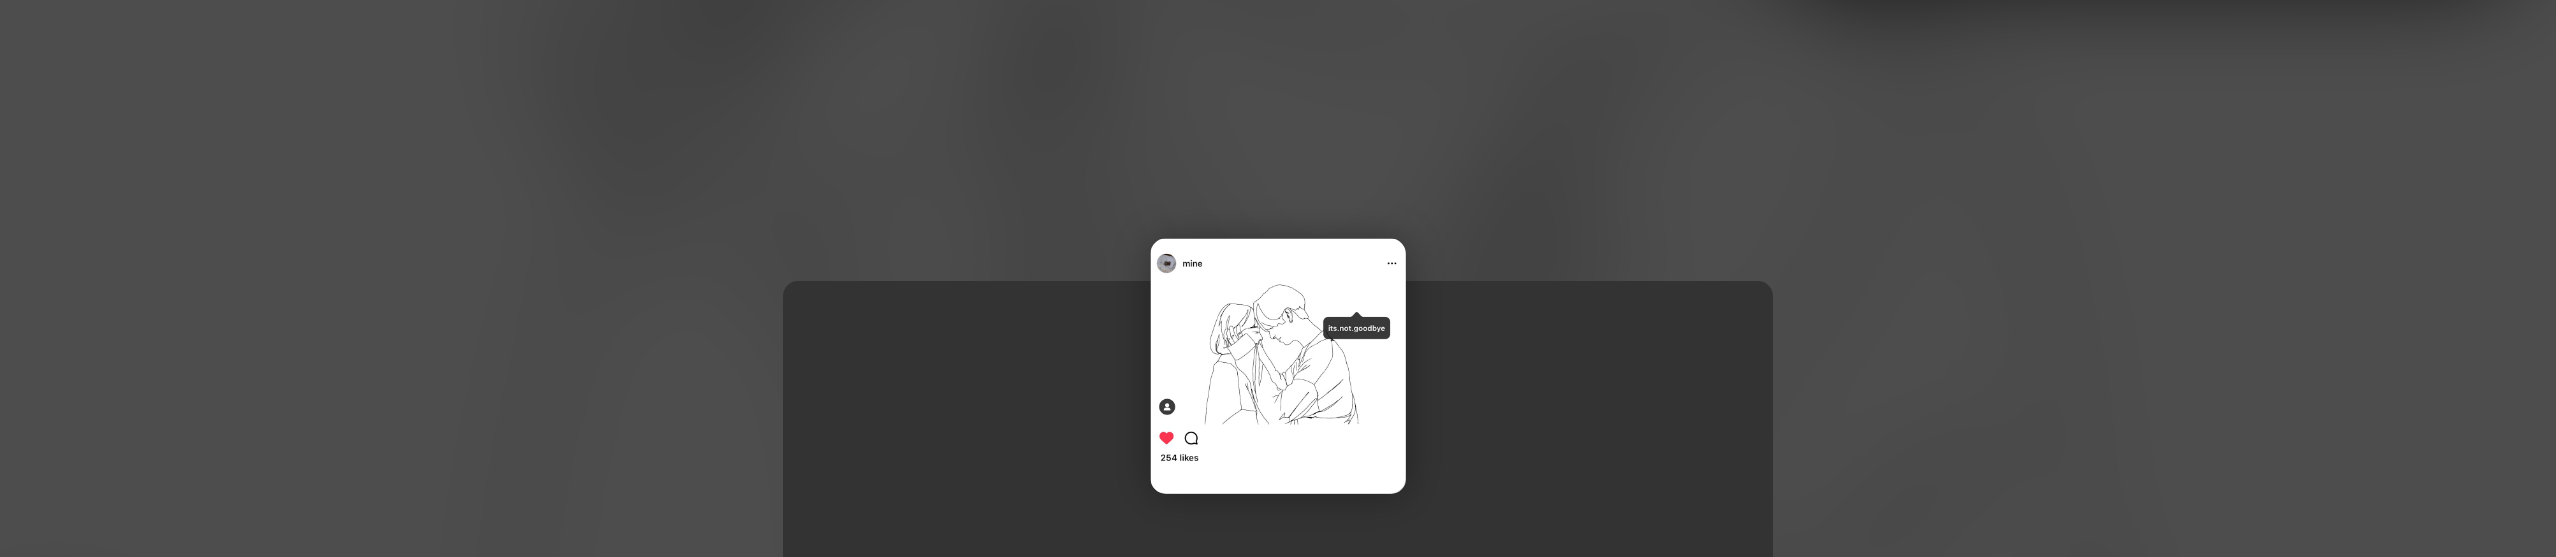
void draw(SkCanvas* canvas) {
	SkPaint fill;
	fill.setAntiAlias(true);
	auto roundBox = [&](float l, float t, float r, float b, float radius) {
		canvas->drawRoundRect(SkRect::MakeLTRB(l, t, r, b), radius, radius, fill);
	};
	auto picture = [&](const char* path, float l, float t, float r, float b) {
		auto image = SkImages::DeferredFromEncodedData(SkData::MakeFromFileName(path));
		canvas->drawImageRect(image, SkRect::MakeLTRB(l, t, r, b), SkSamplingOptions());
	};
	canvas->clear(0xFF000000);
	picture("image0.png", 0, 0, 2556, 557);
	fill.setColor(0xFF333333);
	roundBox(783, 281, 1773, 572, 15);
	fill.setColor(0x59000000);
	fill.setMaskFilter(SkMaskFilter::MakeBlur(kNormal_SkBlurStyle, 19));
	canvas->drawRoundRect(SkRect::MakeLTRB(1151, 239, 1406, 494), 15, 15, fill);
	fill.setMaskFilter(nullptr);
	fill.setColor(0xFFCCCCCC);
	roundBox(1151, 239, 1406, 494, 15);
	picture("image1.png", 1150, 238, 1406, 494);
}
